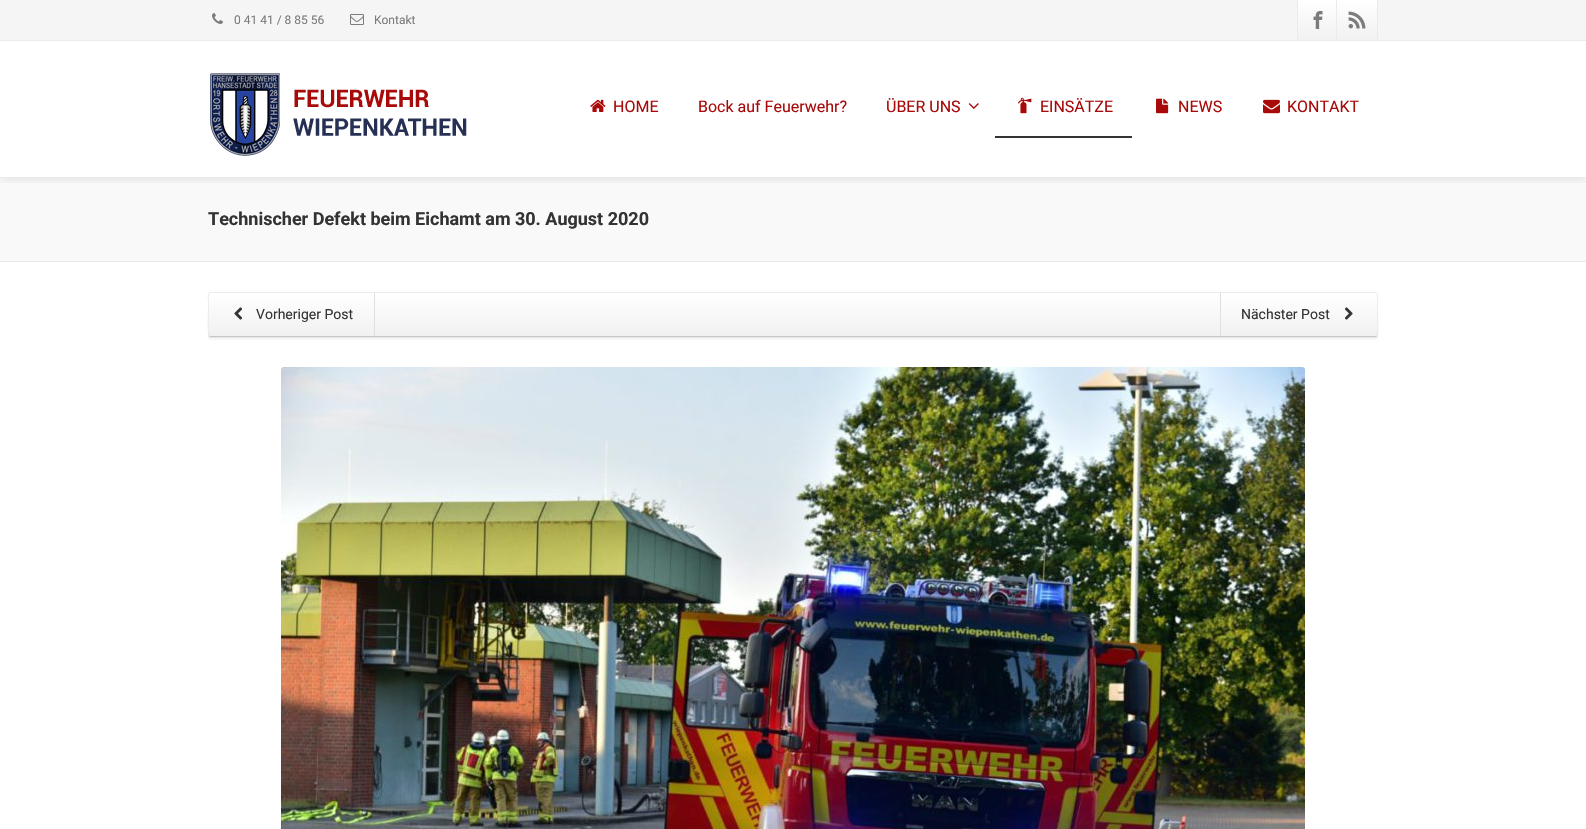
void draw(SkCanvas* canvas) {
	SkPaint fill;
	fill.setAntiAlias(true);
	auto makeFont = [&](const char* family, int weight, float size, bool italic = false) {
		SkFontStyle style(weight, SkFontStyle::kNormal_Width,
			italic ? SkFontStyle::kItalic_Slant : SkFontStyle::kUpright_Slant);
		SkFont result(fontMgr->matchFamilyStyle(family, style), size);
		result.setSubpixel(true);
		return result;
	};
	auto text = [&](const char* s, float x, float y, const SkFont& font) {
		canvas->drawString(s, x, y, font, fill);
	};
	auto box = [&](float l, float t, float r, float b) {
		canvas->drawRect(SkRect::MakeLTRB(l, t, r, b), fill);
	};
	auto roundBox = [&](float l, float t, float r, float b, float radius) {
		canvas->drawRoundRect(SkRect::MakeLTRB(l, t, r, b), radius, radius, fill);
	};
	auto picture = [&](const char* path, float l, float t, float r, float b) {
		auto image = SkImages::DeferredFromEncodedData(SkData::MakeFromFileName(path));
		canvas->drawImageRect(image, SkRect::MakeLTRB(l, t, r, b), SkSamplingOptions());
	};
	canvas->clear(0xFFFFFFFF);
	fill.setColor(0xFFF9F9F9);
	box(0, 177, 1586, 261);
	canvas->save();
	canvas->clipRect(SkRect::MakeLTRB(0, 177, 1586, 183));
	fill.setColor(0x1A000000);
	fill.setMaskFilter(SkMaskFilter::MakeBlur(kNormal_SkBlurStyle, 5));
	canvas->drawRect(SkRect::MakeLTRB(0, 2, 1586, 179), fill);
	fill.setMaskFilter(nullptr);
	canvas->restore();
	fill.setColor(0xFFEBEBEB);
	box(0, 40, 1586, 41);
	fill.setColor(0xFFF5F5F5);
	box(0, 0, 1586, 40);
	picture("image0.png", 212, 13, 223, 24);
	picture("image1.png", 350, 14, 364, 25);
	{
		const SkColor colors[] = {0xFFFFFFFF, 0xFFF1F1F1};
		const float stops[] = {0, 1};
		const SkPoint ends[] = {{1318, 0}, {1318, 40}};
		fill.setShader(SkGradientShader::MakeLinear(ends, colors, stops, 2, SkTileMode::kClamp));
		fill.setAlpha(255);
	}
	box(1298, 0, 1336, 40);
	fill.setShader(nullptr);
	fill.setColor(0xFFEBEBEB);
	box(1297, 0, 1298, 40);
	picture("image2.png", 1313, 11, 1323, 29);
	{
		const SkColor colors[] = {0xFFFFFFFF, 0xFFF1F1F1};
		const float stops[] = {0, 1};
		const SkPoint ends[] = {{1357, 0}, {1357, 40}};
		fill.setShader(SkGradientShader::MakeLinear(ends, colors, stops, 2, SkTileMode::kClamp));
		fill.setAlpha(255);
	}
	box(1337, 0, 1377, 40);
	fill.setShader(nullptr);
	fill.setColor(0xFFEBEBEB);
	box(1377, 0, 1378, 40);
	box(1336, 0, 1337, 40);
	picture("image3.png", 1348, 11, 1366, 29);
	picture("image4.png", 210, 73, 467, 156);
	picture("image5.png", 590, 99, 606, 112);
	picture("image6.png", 968, 103, 979, 109);
	fill.setColor(0xFF333333);
	box(995, 136, 1132, 138);
	picture("image7.png", 1018, 97, 1032, 114);
	picture("image8.png", 1156, 98, 1169, 114);
	picture("image9.png", 1263, 99, 1280, 114);
	fill.setColor(0xFFEBEBEB);
	box(0, 261, 1586, 262);
	fill.setColor(0xFFEDEDED);
	canvas->drawPath(SkPathBuilder().moveTo(208, 334).lineTo(208, 335).cubicTo(208, 337, 209, 338, 211, 338).lineTo(1375, 338).cubicTo(1377, 338, 1378, 337, 1378, 335).lineTo(1378, 334).cubicTo(1378, 336, 1377, 337, 1375, 337).lineTo(211, 337).cubicTo(209, 337, 208, 336, 208, 334).close().detach(), fill);
	fill.setColor(0x08000000);
	canvas->drawPath(SkPathBuilder().moveTo(208, 334).lineTo(208, 337).cubicTo(208, 339, 209, 340, 211, 340).lineTo(1375, 340).cubicTo(1377, 340, 1378, 339, 1378, 337).lineTo(1378, 334).cubicTo(1378, 336, 1377, 337, 1375, 337).lineTo(211, 337).cubicTo(209, 337, 208, 336, 208, 334).close().detach(), fill);
	fill.setColor(0xFFFFFFFF);
	roundBox(208, 292, 1378, 337, 3);
	canvas->save();
	canvas->clipPath(SkPathBuilder().moveTo(211, 292).lineTo(1375, 292).cubicTo(1376.5f, 292, 1378, 293.5f, 1378, 295).lineTo(1378, 334).cubicTo(1378, 335.5f, 1376.5f, 337, 1375, 337).lineTo(211, 337).cubicTo(209.5f, 337, 208, 335.5f, 208, 334).lineTo(208, 295).cubicTo(208, 293.5f, 209.5f, 292, 211, 292).close().detach(), true);
	{
		const SkColor colors[] = {0xFFFFFFFF, 0xFFF1F1F1};
		const float stops[] = {0, 1};
		const SkPoint ends[] = {{793, 293}, {793, 336}};
		fill.setShader(SkGradientShader::MakeLinear(ends, colors, stops, 2, SkTileMode::kClamp));
		fill.setAlpha(255);
	}
	box(208, 293, 1378, 336);
	canvas->restore();
	fill.setStyle(SkPaint::kStroke_Style);
	fill.setStrokeWidth(1);
	fill.setShader(nullptr);
	fill.setColor(0x38000000);
	canvas->drawPath(SkPathBuilder().moveTo(1377, 336).lineTo(1375, 336.5f).lineTo(211, 336.5f).lineTo(209, 336).detach(), fill);
	fill.setColor(0xFFEBEBEB);
	canvas->drawPath(SkPathBuilder().moveTo(209, 336).cubicTo(207.5f, 334, 208.5f, 312, 208.5f, 308).lineTo(208.5f, 301.5f).cubicTo(208.5f, 300, 207, 292.5f, 211, 292.5f).lineTo(1375, 292.5f).cubicTo(1379, 292.5f, 1377.5f, 300, 1377.5f, 301.5f).lineTo(1377.5f, 308).cubicTo(1377.5f, 312, 1378.5f, 334, 1377, 336).detach(), fill);
	fill.setStyle(SkPaint::kFill_Style);
	fill.setColor(0xFFE0E0E0);
	box(374, 293, 375, 336);
	picture("image10.png", 234, 307, 242, 320);
	box(1220, 293, 1221, 336);
	picture("image11.png", 1345, 307, 1353, 320);
	picture("image12.png", 281, 367, 1305, 829);
	auto font1 = makeFont("Roboto", 400, 12);
	fill.setColor(0xFF7C7C7C);
	text("0 41 41 / 8 85 56", 234, 24, font1);
	text("Kontakt", 374, 24, font1);
	auto font2 = makeFont("Roboto", 400, 16);
	fill.setColor(0xFFA80A0A);
	text("HOME", 613, 112, font2);
	text("Bock auf Feuerwehr?", 698, 112, font2);
	text("ÜBER UNS", 886, 112, font2);
	text("EINSÄTZE", 1040, 112, font2);
	text("NEWS", 1178, 112, font2);
	text("KONTAKT", 1287, 112, font2);
	auto font3 = makeFont("Roboto", 700, 18);
	fill.setColor(0xFF333333);
	text("Technischer Defekt beim Eichamt am 30. August 2020", 208, 225, font3);
	auto font4 = makeFont("Roboto", 400, 14);
	text("Vorheriger Post", 256, 319, font4);
	text("Nächster Post", 1241, 319, font4);
}
